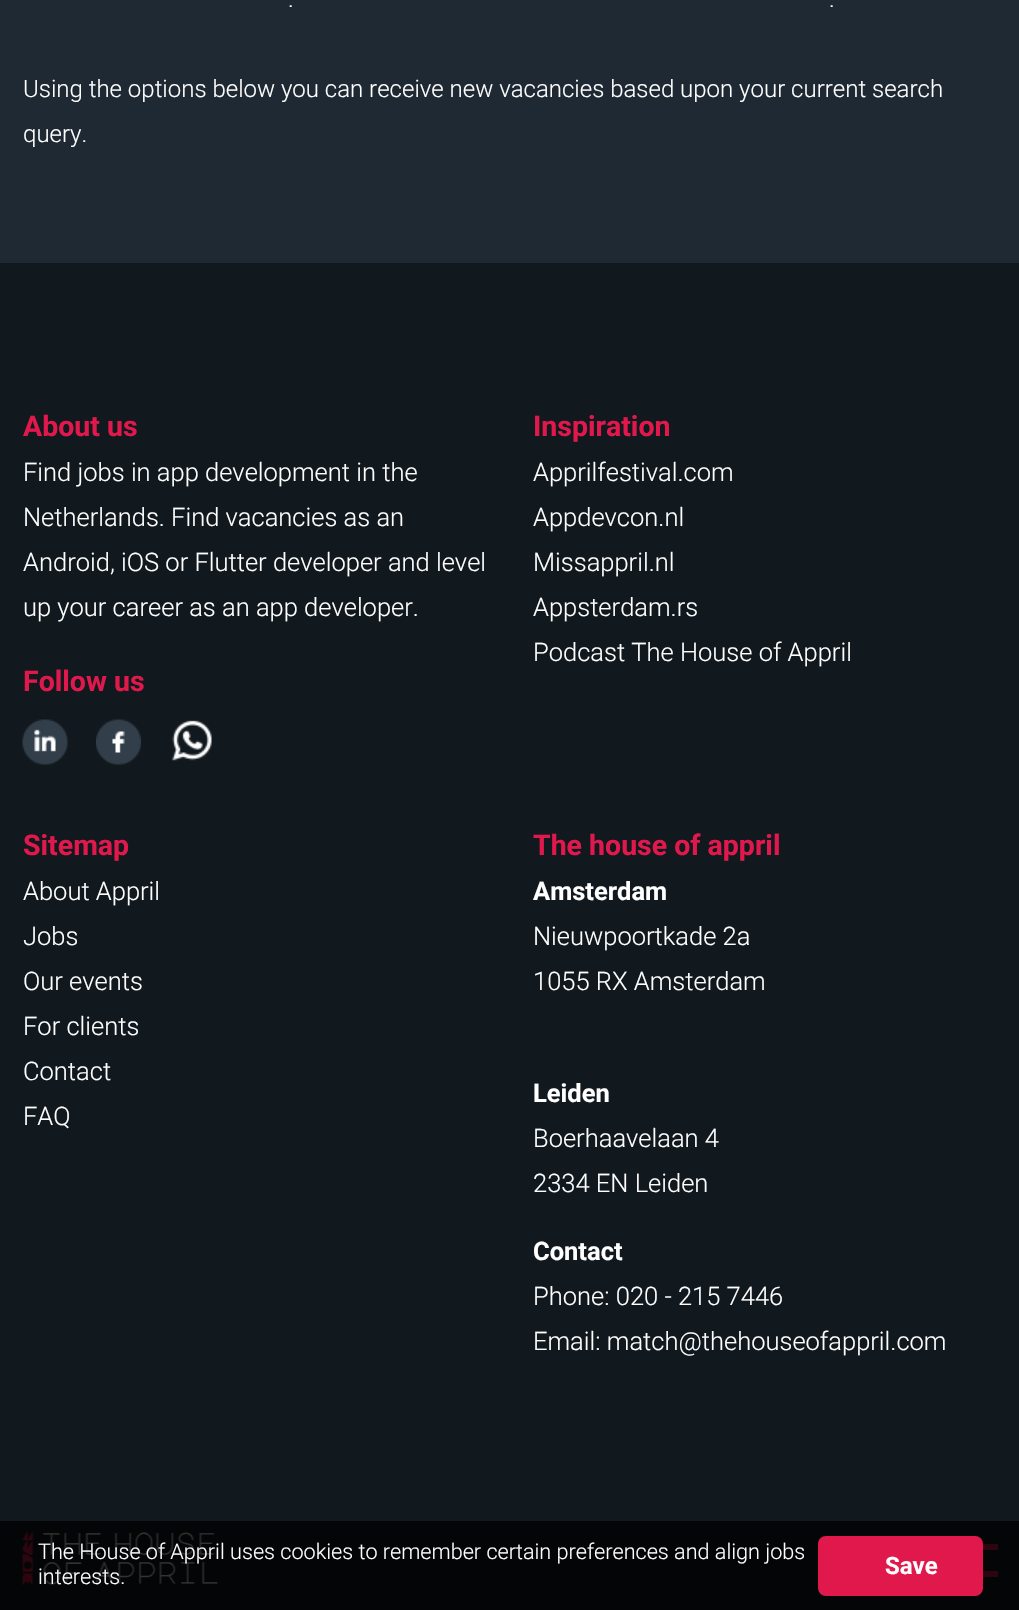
void draw(SkCanvas* canvas) {
	SkPaint fill;
	fill.setAntiAlias(true);
	auto makeFont = [&](const char* family, int weight, float size, bool italic = false) {
		SkFontStyle style(weight, SkFontStyle::kNormal_Width,
			italic ? SkFontStyle::kItalic_Slant : SkFontStyle::kUpright_Slant);
		SkFont result(fontMgr->matchFamilyStyle(family, style), size);
		result.setSubpixel(true);
		return result;
	};
	auto text = [&](const char* s, float x, float y, const SkFont& font) {
		canvas->drawString(s, x, y, font, fill);
	};
	auto box = [&](float l, float t, float r, float b) {
		canvas->drawRect(SkRect::MakeLTRB(l, t, r, b), fill);
	};
	auto roundBox = [&](float l, float t, float r, float b, float radius) {
		canvas->drawRoundRect(SkRect::MakeLTRB(l, t, r, b), radius, radius, fill);
	};
	auto picture = [&](const char* path, float l, float t, float r, float b) {
		auto image = SkImages::DeferredFromEncodedData(SkData::MakeFromFileName(path));
		canvas->drawImageRect(image, SkRect::MakeLTRB(l, t, r, b), SkSamplingOptions());
	};
	canvas->clear(0xFF1F2933);
	fill.setColor(0xFF11181E);
	box(0, 263, 1019, 1521);
	picture("image0.png", 22, 719, 68, 765);
	picture("image1.png", 96, 719, 141, 765);
	picture("image2.png", 172, 720, 212, 761);
	fill.setColor(0xFF030506);
	box(0, 1521, 1019, 1610);
	picture("image3.png", 22, 1532, 218, 1585);
	fill.setColor(0xFF2D050F);
	box(983, 1544, 998, 1550);
	box(983, 1571, 998, 1577);
	fill.setColor(0xFFE1184C);
	roundBox(818, 1536, 983, 1596, 8);
	auto font1 = makeFont("Roboto", 300, 24);
	fill.setColor(0xFFFFFFFF);
	text(".", 288, 7, font1);
	text(".", 829, 7, font1);
	text("Using the options below you can receive new vacancies based upon your current search", 23, 97, font1);
	text("query.", 23, 142, font1);
	auto font2 = makeFont("Roboto", 700, 28.5f);
	fill.setColor(0xFFE1184C);
	text("About us", 23, 436, font2);
	auto font3 = makeFont("Roboto", 300, 25.5f);
	fill.setColor(0xFFFFFFFF);
	text("Find jobs in app development in the", 23, 481, font3);
	text("Netherlands. Find vacancies as an", 23, 526, font3);
	text("Android, iOS or Flutter developer and level", 23, 571, font3);
	text("up your career as an app developer.", 23, 616, font3);
	fill.setColor(0xFFE1184C);
	text("Follow us", 23, 691, font2);
	text("Inspiration", 533, 436, font2);
	fill.setColor(0xFFFFFFFF);
	text("Apprilfestival.com", 533, 481, font3);
	text("Appdevcon.nl", 533, 526, font3);
	text("Missappril.nl", 533, 571, font3);
	text("Appsterdam.rs", 533, 616, font3);
	text("Podcast The House of Appril", 533, 661, font3);
	fill.setColor(0xFFE1184C);
	text("Sitemap", 23, 855, font2);
	fill.setColor(0xFFFFFFFF);
	text("About Appril", 23, 900, font3);
	text("Jobs", 23, 945, font3);
	text("Our events", 23, 990, font3);
	text("For clients", 23, 1035, font3);
	text("Contact", 23, 1080, font3);
	text("FAQ", 23, 1125, font3);
	fill.setColor(0xFFE1184C);
	text("The house of appril", 533, 855, font2);
	auto font4 = makeFont("Roboto", 700, 25.5f);
	fill.setColor(0xFFFFFFFF);
	text("Amsterdam", 533, 900, font4);
	text("Nieuwpoortkade 2a", 533, 945, font3);
	text("1055 RX Amsterdam", 533, 990, font3);
	text("Leiden", 533, 1102, font4);
	text("Boerhaavelaan 4", 533, 1147, font3);
	text("2334 EN Leiden", 533, 1192, font3);
	text("Contact", 533, 1260, font4);
	text("Phone: 020 - 215 7446", 533, 1305, font3);
	text("Email: match@thehouseofappril.com", 533, 1350, font3);
	auto font5 = makeFont("Roboto", 300, 21.6f);
	text("The House of Appril uses cookies to remember certain preferences and align jobs", 38, 1559, font5);
	text("interests.", 38, 1584, font5);
	auto font6 = makeFont("Roboto", 700, 24);
	text("Save", 885, 1574, font6);
}
